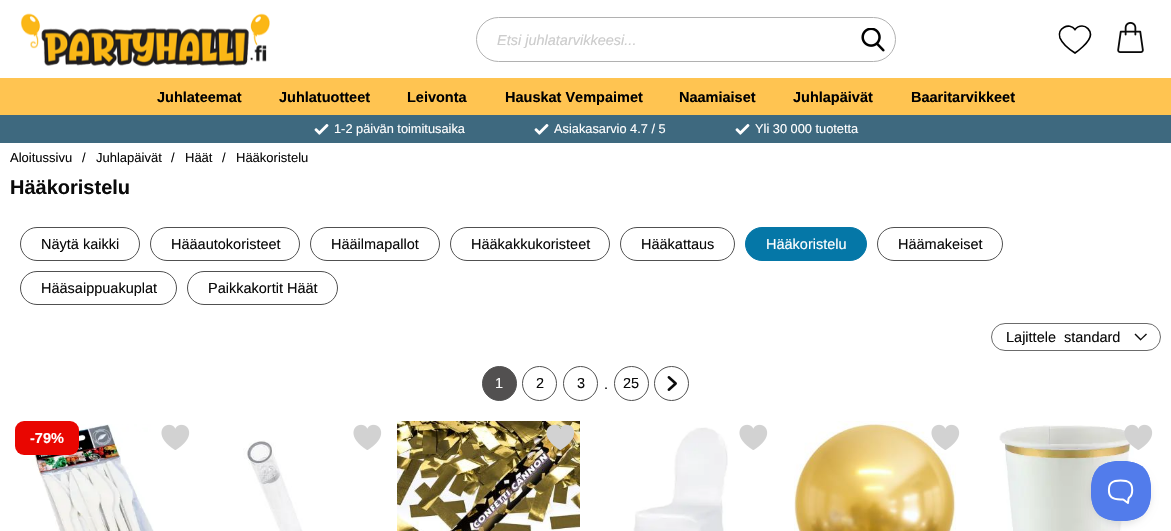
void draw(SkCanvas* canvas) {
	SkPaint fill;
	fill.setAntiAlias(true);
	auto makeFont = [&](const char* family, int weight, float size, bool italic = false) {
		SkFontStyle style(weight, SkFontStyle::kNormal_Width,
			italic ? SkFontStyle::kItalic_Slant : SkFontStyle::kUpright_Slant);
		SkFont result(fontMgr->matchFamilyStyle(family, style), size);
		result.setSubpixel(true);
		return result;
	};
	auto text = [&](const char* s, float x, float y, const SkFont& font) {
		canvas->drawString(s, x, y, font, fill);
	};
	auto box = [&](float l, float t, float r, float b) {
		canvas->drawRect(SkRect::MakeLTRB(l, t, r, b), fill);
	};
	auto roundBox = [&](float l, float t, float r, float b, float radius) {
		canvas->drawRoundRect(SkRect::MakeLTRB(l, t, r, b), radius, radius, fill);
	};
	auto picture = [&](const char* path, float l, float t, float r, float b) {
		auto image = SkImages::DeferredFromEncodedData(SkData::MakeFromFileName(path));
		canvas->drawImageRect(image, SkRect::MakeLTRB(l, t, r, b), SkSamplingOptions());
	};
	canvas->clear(0xFFFFFFFF);
	picture("image0.png", 20, 13, 270, 67);
	fill.setStyle(SkPaint::kStroke_Style);
	fill.setStrokeWidth(1);
	fill.setColor(0xFFB1B1B1);
	canvas->drawRoundRect(SkRect::MakeLTRB(476.5f, 17.5f, 895.5f, 61.5f), 22, 22, fill);
	picture("image1.png", 861, 28, 885, 52);
	fill.setStrokeWidth(1.7f);
	fill.setColor(0xFF000000);
	canvas->drawPath(SkPathBuilder().moveTo(1082, 26).cubicTo(1086.5f, 26, 1090.5f, 30, 1090.5f, 34.5f).cubicTo(1090.5f, 42.5f, 1075, 53, 1075, 53).cubicTo(1069.5f, 49.5f, 1062.5f, 44, 1060, 38).cubicTo(1056.5f, 28, 1069.5f, 22, 1075, 29.5f).cubicTo(1076.5f, 27.5f, 1079, 26, 1082, 26).close().detach(), fill);
	picture("image2.png", 1117, 22, 1144, 53);
	fill.setStyle(SkPaint::kFill_Style);
	fill.setColor(0xFFFFC451);
	box(0, 78, 1171, 115);
	fill.setColor(0xFF3E697F);
	box(0, 115, 1171, 143);
	picture("image3.png", 314, 124, 329, 135);
	picture("image3.png", 534, 124, 549, 135);
	picture("image3.png", 735, 124, 750, 135);
	fill.setStyle(SkPaint::kStroke_Style);
	fill.setStrokeWidth(1);
	fill.setColor(0xFF505050);
	canvas->drawRoundRect(SkRect::MakeLTRB(20.5f, 227.5f, 139.5f, 260.5f), 16.5f, 16.5f, fill);
	canvas->drawRoundRect(SkRect::MakeLTRB(150.5f, 227.5f, 299.5f, 260.5f), 16.5f, 16.5f, fill);
	canvas->drawRoundRect(SkRect::MakeLTRB(310.5f, 227.5f, 439.5f, 260.5f), 16.5f, 16.5f, fill);
	canvas->drawRoundRect(SkRect::MakeLTRB(450.5f, 227.5f, 609.5f, 260.5f), 16.5f, 16.5f, fill);
	canvas->drawRoundRect(SkRect::MakeLTRB(620.5f, 227.5f, 734.5f, 260.5f), 16.5f, 16.5f, fill);
	fill.setStyle(SkPaint::kFill_Style);
	fill.setColor(0xFF0577A7);
	canvas->drawRoundRect(SkRect::MakeLTRB(745.5f, 227.5f, 866.5f, 260.5f), 16.5f, 16.5f, fill);
	fill.setStyle(SkPaint::kStroke_Style);
	canvas->drawRoundRect(SkRect::MakeLTRB(745.5f, 227.5f, 866.5f, 260.5f), 16.5f, 16.5f, fill);
	fill.setColor(0xFF505050);
	canvas->drawRoundRect(SkRect::MakeLTRB(877.5f, 227.5f, 1002.5f, 260.5f), 16.5f, 16.5f, fill);
	canvas->drawRoundRect(SkRect::MakeLTRB(20.5f, 271.5f, 176.5f, 304.5f), 16.5f, 16.5f, fill);
	canvas->drawRoundRect(SkRect::MakeLTRB(187.5f, 271.5f, 337.5f, 304.5f), 16.5f, 16.5f, fill);
	fill.setColor(0xFF6B6B6B);
	canvas->drawRoundRect(SkRect::MakeLTRB(991.5f, 323.5f, 1160.5f, 350.5f), 13.5f, 13.5f, fill);
	fill.setStyle(SkPaint::kFill_Style);
	fill.setColor(0xFF0A0A0A);
	canvas->drawPath(SkPathBuilder().moveTo(1147, 334.5f).lineTo(1140.5f, 340.5f).lineTo(1140, 339.5f).lineTo(1146, 333.5f).close().detach(), fill);
	canvas->drawPath(SkPathBuilder().moveTo(1141.5f, 339.5f).lineTo(1140.5f, 340.5f).lineTo(1134.5f, 334.5f).lineTo(1135.5f, 333.5f).close().detach(), fill);
	fill.setColor(0xFF525050);
	canvas->drawCircle(499.5f, 383.5f, 17, fill);
	fill.setStyle(SkPaint::kStroke_Style);
	fill.setColor(0xFF505050);
	canvas->drawCircle(499.5f, 383.5f, 17, fill);
	canvas->drawCircle(539.5f, 383.5f, 17, fill);
	canvas->drawCircle(580.5f, 383.5f, 17, fill);
	canvas->drawCircle(631.5f, 383.5f, 17, fill);
	canvas->drawCircle(671.5f, 383.5f, 17, fill);
	picture("image4.png", 667, 376, 677, 391);
	picture("image5.png", 31, 424, 154, 531);
	fill.setStyle(SkPaint::kFill_Style);
	fill.setColor(0xFFE90601);
	roundBox(15, 421, 79, 455, 9);
	picture("image6.png", 161, 424, 190, 450);
	picture("image6.png", 353, 424, 382, 450);
	picture("image7.png", 243, 440, 303, 531);
	picture("image8.png", 397, 421, 580, 531);
	picture("image9.png", 546, 424, 575, 451);
	picture("image10.png", 633, 427, 728, 531);
	picture("image6.png", 739, 424, 768, 450);
	picture("image11.png", 794, 421, 956, 531);
	picture("image12.png", 931, 424, 960, 450);
	picture("image13.png", 999, 425, 1134, 531);
	picture("image14.png", 1124, 424, 1153, 450);
	fill.setColor(0x1A000000);
	fill.setMaskFilter(SkMaskFilter::MakeBlur(kNormal_SkBlurStyle, 3.5f));
	canvas->drawRoundRect(SkRect::MakeLTRB(1091, 465, 1151, 525), 30, 30, fill);
	fill.setMaskFilter(nullptr);
	picture("image15.png", 1091, 461, 1151, 521);
	auto font1 = makeFont("Liberation Sans", 400, 14.5f, true);
	fill.setColor(0xFFCCCCCC);
	text("Etsi juhlatarvikkeesi...", 497, 45, font1);
	auto font2 = makeFont("Liberation Sans", 700, 14.5f);
	fill.setColor(0xFF000000);
	text("Juhlateemat", 157, 102, font2);
	text("Juhlatuotteet", 279, 102, font2);
	text("Leivonta", 407, 102, font2);
	text("Hauskat Vempaimet", 505, 102, font2);
	text("Naamiaiset", 679, 102, font2);
	text("Juhlapäivät", 793, 102, font2);
	text("Baaritarvikkeet", 911, 102, font2);
	auto font3 = makeFont("Liberation Sans", 400, 12.8f);
	fill.setColor(0xFFFFFFFF);
	text("1-2 päivän toimitusaika", 334, 133, font3);
	text("Asiakasarvio 4.7 / 5", 554, 133, font3);
	text("Yli 30 000 tuotetta", 755, 133, font3);
	auto font4 = makeFont("Liberation Sans", 400, 13);
	fill.setColor(0xFF0A0A0A);
	text("Aloitussivu", 10, 162, font4);
	text("/", 82, 162, font4);
	text("Juhlapäivät", 96, 162, font4);
	text("/", 171, 162, font4);
	text("Häät", 185, 162, font4);
	text("/", 222, 162, font4);
	text("Hääkoristelu", 236, 162, font4);
	auto font5 = makeFont("Liberation Sans", 700, 20);
	text("Hääkoristelu", 10, 194, font5);
	auto font6 = makeFont("Liberation Sans", 400, 14.5f);
	text("Näytä kaikki", 41, 249, font6);
	text("Hääautokoristeet", 171, 249, font6);
	text("Hääilmapallot", 331, 249, font6);
	text("Hääkakkukoristeet", 471, 249, font6);
	text("Hääkattaus", 641, 249, font6);
	fill.setColor(0xFFFFFFFF);
	text("Hääkoristelu", 766, 249, font6);
	fill.setColor(0xFF0A0A0A);
	text("Häämakeiset", 898, 249, font6);
	text("Hääsaippuakuplat", 41, 293, font6);
	text("Paikkakortit Häät", 208, 293, font6);
	text("Lajittele", 1006, 342, font6);
	text("standard", 1064, 342, font6);
	fill.setColor(0xFFFFFFFF);
	text("1", 495, 388, font6);
	fill.setColor(0xFF0A0A0A);
	text("2", 536, 388, font6);
	text("3", 577, 388, font6);
	text(".", 604, 389, font6);
	text("25", 623, 388, font6);
	fill.setColor(0xFFFFFFFF);
	text("-79%", 30, 443, font2);
}
